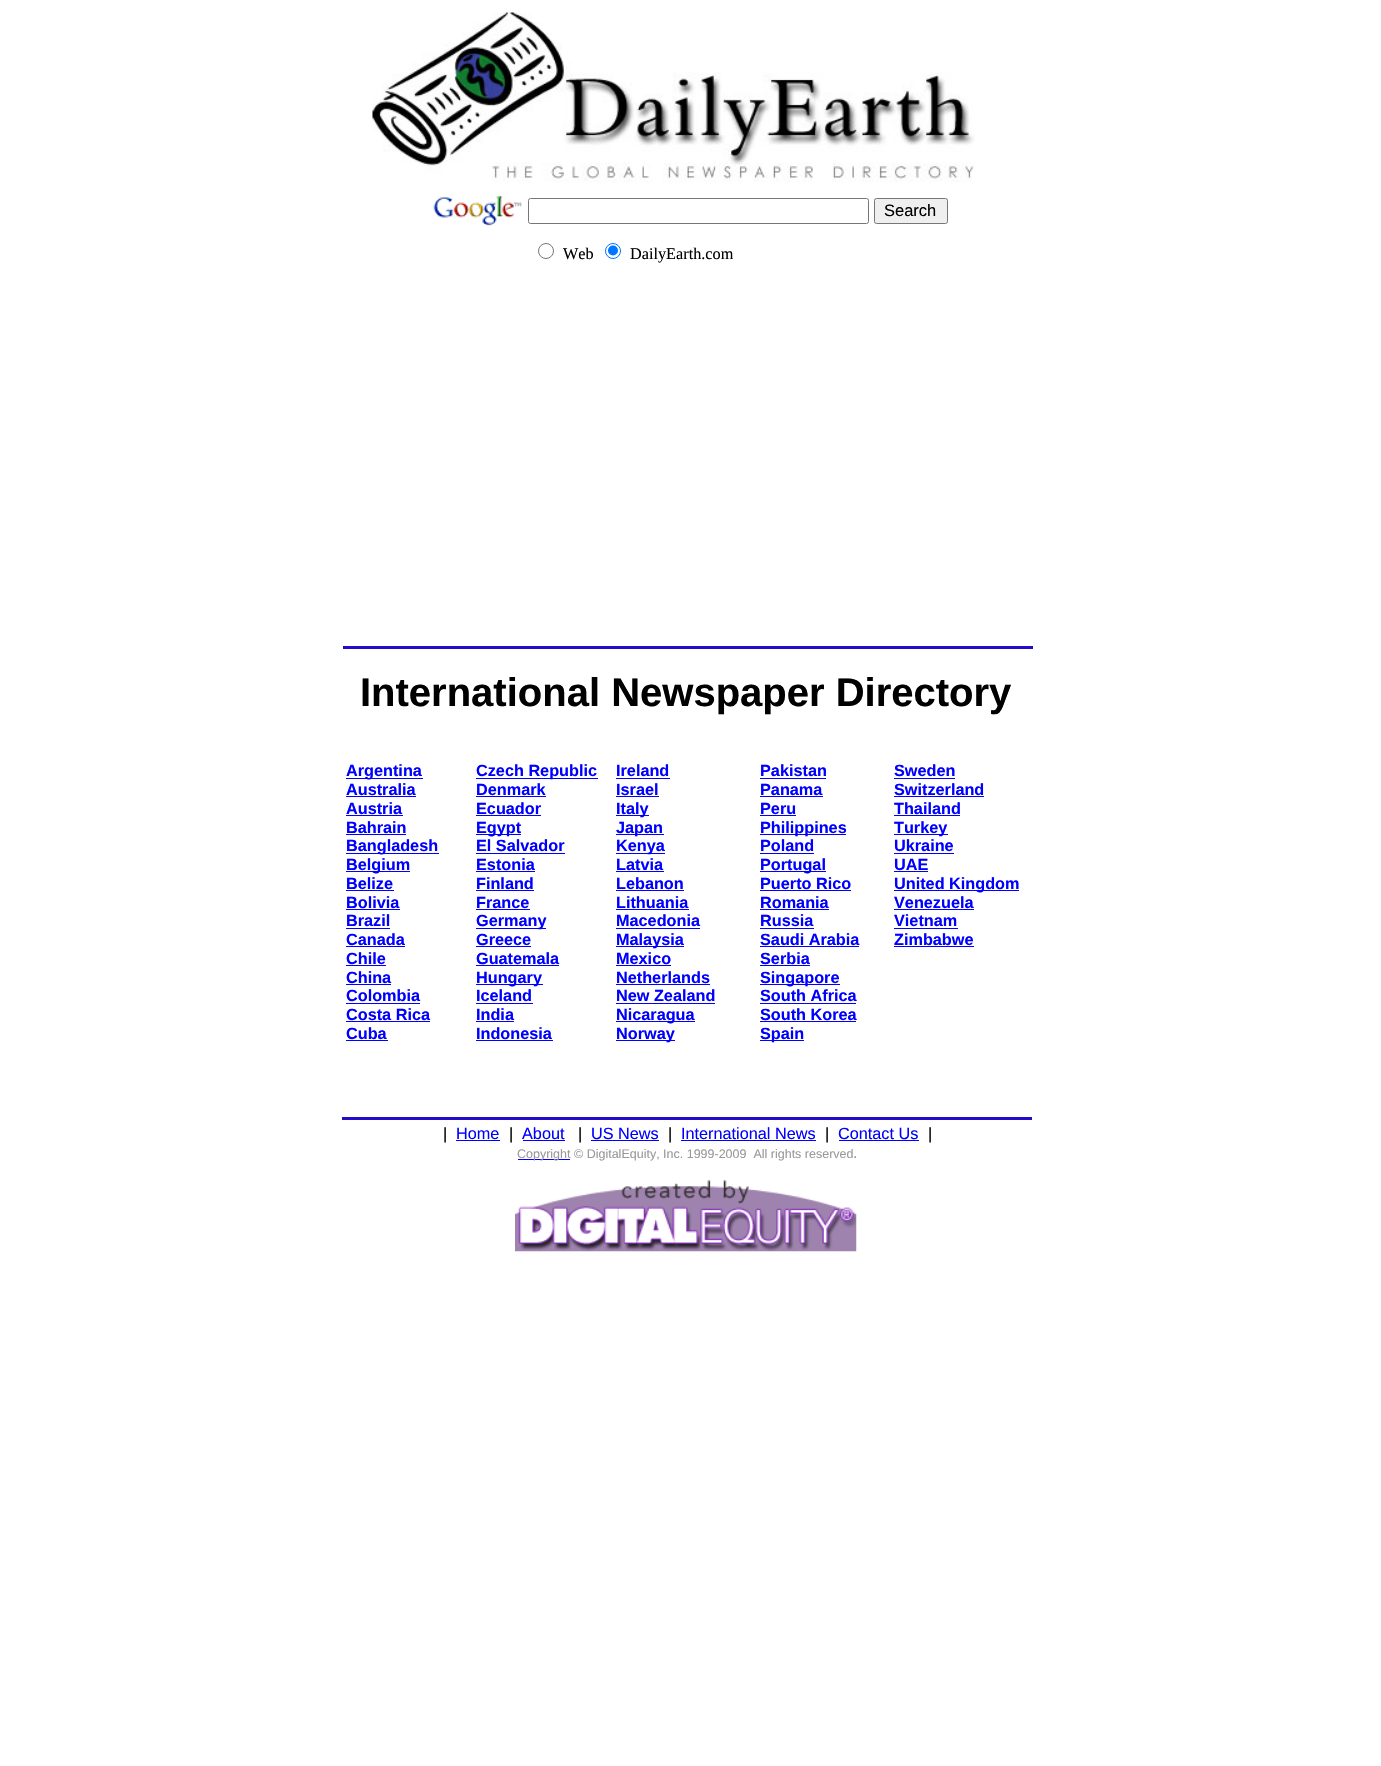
void draw(SkCanvas* canvas) {
	SkPaint fill;
	fill.setAntiAlias(true);
	auto makeFont = [&](const char* family, int weight, float size, bool italic = false) {
		SkFontStyle style(weight, SkFontStyle::kNormal_Width,
			italic ? SkFontStyle::kItalic_Slant : SkFontStyle::kUpright_Slant);
		SkFont result(fontMgr->matchFamilyStyle(family, style), size);
		result.setSubpixel(true);
		return result;
	};
	auto text = [&](const char* s, float x, float y, const SkFont& font) {
		canvas->drawString(s, x, y, font, fill);
	};
	auto box = [&](float l, float t, float r, float b) {
		canvas->drawRect(SkRect::MakeLTRB(l, t, r, b), fill);
	};
	auto picture = [&](const char* path, float l, float t, float r, float b) {
		auto image = SkImages::DeferredFromEncodedData(SkData::MakeFromFileName(path));
		canvas->drawImageRect(image, SkRect::MakeLTRB(l, t, r, b), SkSamplingOptions());
	};
	canvas->clear(0xFFFFFFFF);
	picture("image0.png", 372, 12, 975, 183);
	picture("image1.png", 433, 196, 522, 226);
	fill.setStyle(SkPaint::kStroke_Style);
	fill.setStrokeWidth(1);
	fill.setColor(0xFF767676);
	canvas->drawRoundRect(SkRect::MakeLTRB(528.5f, 198.5f, 868.5f, 223.5f), 2, 2, fill);
	fill.setStyle(SkPaint::kFill_Style);
	fill.setColor(0xFFEFEFEF);
	canvas->drawRoundRect(SkRect::MakeLTRB(874.5f, 198.5f, 947.5f, 223.5f), 2, 2, fill);
	fill.setStyle(SkPaint::kStroke_Style);
	fill.setColor(0xFF767676);
	canvas->drawRoundRect(SkRect::MakeLTRB(874.5f, 198.5f, 947.5f, 223.5f), 2, 2, fill);
	canvas->drawCircle(546, 251, 7.5f, fill);
	fill.setColor(0xFF0075FF);
	canvas->drawCircle(613, 251, 7.5f, fill);
	fill.setStyle(SkPaint::kFill_Style);
	canvas->drawCircle(613, 250.5f, 5, fill);
	fill.setColor(0xFF220CC9);
	box(343, 646, 1033, 649);
	fill.setColor(0xFF0000FF);
	box(346, 778, 423, 779);
	box(346, 796, 416, 797);
	box(346, 815, 403, 816);
	box(346, 834, 406, 835);
	box(346, 853, 439, 854);
	box(346, 871, 410, 872);
	box(346, 890, 394, 891);
	box(346, 909, 400, 910);
	box(346, 928, 390, 929);
	box(346, 946, 405, 947);
	box(346, 965, 386, 966);
	box(346, 984, 391, 985);
	box(346, 1003, 420, 1004);
	box(346, 1021, 430, 1022);
	box(346, 1040, 388, 1041);
	box(476, 778, 598, 779);
	box(476, 796, 546, 797);
	box(476, 815, 541, 816);
	box(476, 834, 521, 835);
	box(476, 853, 565, 854);
	box(476, 871, 535, 872);
	box(476, 890, 534, 891);
	box(476, 909, 530, 910);
	box(476, 928, 546, 929);
	box(476, 946, 531, 947);
	box(476, 965, 559, 966);
	box(476, 984, 543, 985);
	box(476, 1003, 533, 1004);
	box(476, 1021, 514, 1022);
	box(476, 1040, 553, 1041);
	box(616, 778, 670, 779);
	box(616, 796, 659, 797);
	box(616, 815, 649, 816);
	box(616, 834, 664, 835);
	box(616, 853, 665, 854);
	box(616, 871, 664, 872);
	box(616, 890, 684, 891);
	box(616, 909, 689, 910);
	box(616, 928, 700, 929);
	box(616, 946, 684, 947);
	box(616, 965, 671, 966);
	box(616, 984, 710, 985);
	box(616, 1003, 715, 1004);
	box(616, 1021, 695, 1022);
	box(616, 1040, 675, 1041);
	box(760, 778, 826, 779);
	box(760, 796, 823, 797);
	box(760, 815, 796, 816);
	box(760, 834, 846, 835);
	box(760, 853, 814, 854);
	box(760, 871, 826, 872);
	box(760, 890, 851, 891);
	box(760, 909, 829, 910);
	box(760, 928, 814, 929);
	box(760, 946, 859, 947);
	box(760, 965, 810, 966);
	box(760, 984, 840, 985);
	box(760, 1003, 856, 1004);
	box(760, 1021, 856, 1022);
	box(760, 1040, 804, 1041);
	box(894, 778, 955, 779);
	box(894, 796, 984, 797);
	box(894, 815, 960, 816);
	box(894, 834, 948, 835);
	box(894, 853, 954, 854);
	box(894, 871, 928, 872);
	box(894, 890, 1019, 891);
	box(894, 909, 974, 910);
	box(894, 928, 958, 929);
	box(894, 946, 974, 947);
	fill.setColor(0xFF220CC9);
	box(342, 1117, 1032, 1120);
	fill.setColor(0xFF0000FF);
	box(456, 1140, 500, 1141);
	box(523, 1140, 565, 1141);
	box(591, 1140, 659, 1141);
	box(681, 1140, 816, 1141);
	box(839, 1140, 919, 1141);
	box(518, 1159, 570, 1160);
	picture("image2.png", 515, 1179, 857, 1252);
	auto font1 = makeFont("Liberation Sans", 400, 16.5f);
	fill.setColor(0xFF000000);
	text("Search", 884, 216, font1);
	auto font2 = makeFont("Liberation Serif", 400, 16.25f);
	text("Web", 563, 259, font2);
	text("DailyEarth.com", 630, 259, font2);
	auto font3 = makeFont("Liberation Sans", 700, 40);
	text("International Newspaper Directory", 360, 706, font3);
	auto font4 = makeFont("Liberation Sans", 700, 16.25f);
	fill.setColor(0xFF0000FF);
	text("Argentina", 346, 776, font4);
	text("Australia", 346, 795, font4);
	text("Austria", 346, 814, font4);
	text("Bahrain", 346, 833, font4);
	text("Bangladesh", 346, 851, font4);
	text("Belgium", 346, 870, font4);
	text("Belize", 346, 889, font4);
	text("Bolivia", 346, 908, font4);
	text("Brazil", 346, 926, font4);
	text("Canada", 346, 945, font4);
	text("Chile", 346, 964, font4);
	text("China", 346, 983, font4);
	text("Colombia", 346, 1001, font4);
	text("Costa Rica", 346, 1020, font4);
	text("Cuba", 346, 1039, font4);
	text("Czech Republic", 476, 776, font4);
	text("Denmark", 476, 795, font4);
	text("Ecuador", 476, 814, font4);
	text("Egypt", 476, 833, font4);
	text("El Salvador", 476, 851, font4);
	text("Estonia", 476, 870, font4);
	text("Finland", 476, 889, font4);
	text("France", 476, 908, font4);
	text("Germany", 476, 926, font4);
	text("Greece", 476, 945, font4);
	text("Guatemala", 476, 964, font4);
	text("Hungary", 476, 983, font4);
	text("Iceland", 476, 1001, font4);
	text("India", 476, 1020, font4);
	text("Indonesia", 476, 1039, font4);
	text("Ireland", 616, 776, font4);
	text("Israel", 616, 795, font4);
	text("Italy", 616, 814, font4);
	text("Japan", 616, 833, font4);
	text("Kenya", 616, 851, font4);
	text("Latvia", 616, 870, font4);
	text("Lebanon", 616, 889, font4);
	text("Lithuania", 616, 908, font4);
	text("Macedonia", 616, 926, font4);
	text("Malaysia", 616, 945, font4);
	text("Mexico", 616, 964, font4);
	text("Netherlands", 616, 983, font4);
	text("New Zealand", 616, 1001, font4);
	text("Nicaragua", 616, 1020, font4);
	text("Norway", 616, 1039, font4);
	text("Pakistan", 760, 776, font4);
	text("Panama", 760, 795, font4);
	text("Peru", 760, 814, font4);
	text("Philippines", 760, 833, font4);
	text("Poland", 760, 851, font4);
	text("Portugal", 760, 870, font4);
	text("Puerto Rico", 760, 889, font4);
	text("Romania", 760, 908, font4);
	text("Russia", 760, 926, font4);
	text("Saudi Arabia", 760, 945, font4);
	text("Serbia", 760, 964, font4);
	text("Singapore", 760, 983, font4);
	text("South Africa", 760, 1001, font4);
	text("South Korea", 760, 1020, font4);
	text("Spain", 760, 1039, font4);
	text("Sweden", 894, 776, font4);
	text("Switzerland", 894, 795, font4);
	text("Thailand", 894, 814, font4);
	text("Turkey", 894, 833, font4);
	text("Ukraine", 894, 851, font4);
	text("UAE", 894, 870, font4);
	text("United Kingdom", 894, 889, font4);
	text("Venezuela", 894, 908, font4);
	text("Vietnam", 894, 926, font4);
	text("Zimbabwe", 894, 945, font4);
	auto font5 = makeFont("Liberation Sans", 400, 16.25f);
	fill.setColor(0xFF000000);
	text("|", 443, 1139, font5);
	fill.setColor(0xFF0000FF);
	text("Home", 456, 1139, font5);
	fill.setColor(0xFF000000);
	text("|", 509, 1139, font5);
	fill.setColor(0xFF0000FF);
	text("About", 522, 1139, font5);
	fill.setColor(0xFF000000);
	text("|", 578, 1139, font5);
	fill.setColor(0xFF0000FF);
	text("US News", 591, 1139, font5);
	fill.setColor(0xFF000000);
	text("|", 668, 1139, font5);
	fill.setColor(0xFF0000FF);
	text("International News", 681, 1139, font5);
	fill.setColor(0xFF000000);
	text("|", 825, 1139, font5);
	fill.setColor(0xFF0000FF);
	text("Contact Us", 838, 1139, font5);
	fill.setColor(0xFF000000);
	text("|", 928, 1139, font5);
	auto font6 = makeFont("Liberation Sans", 400, 12.5f);
	fill.setColor(0xFF999999);
	text("Copyright © DigitalEquity, Inc. 1999-2009  All rights reserved", 517, 1158, font6);
	text(".", 853, 1158, font5);
}
